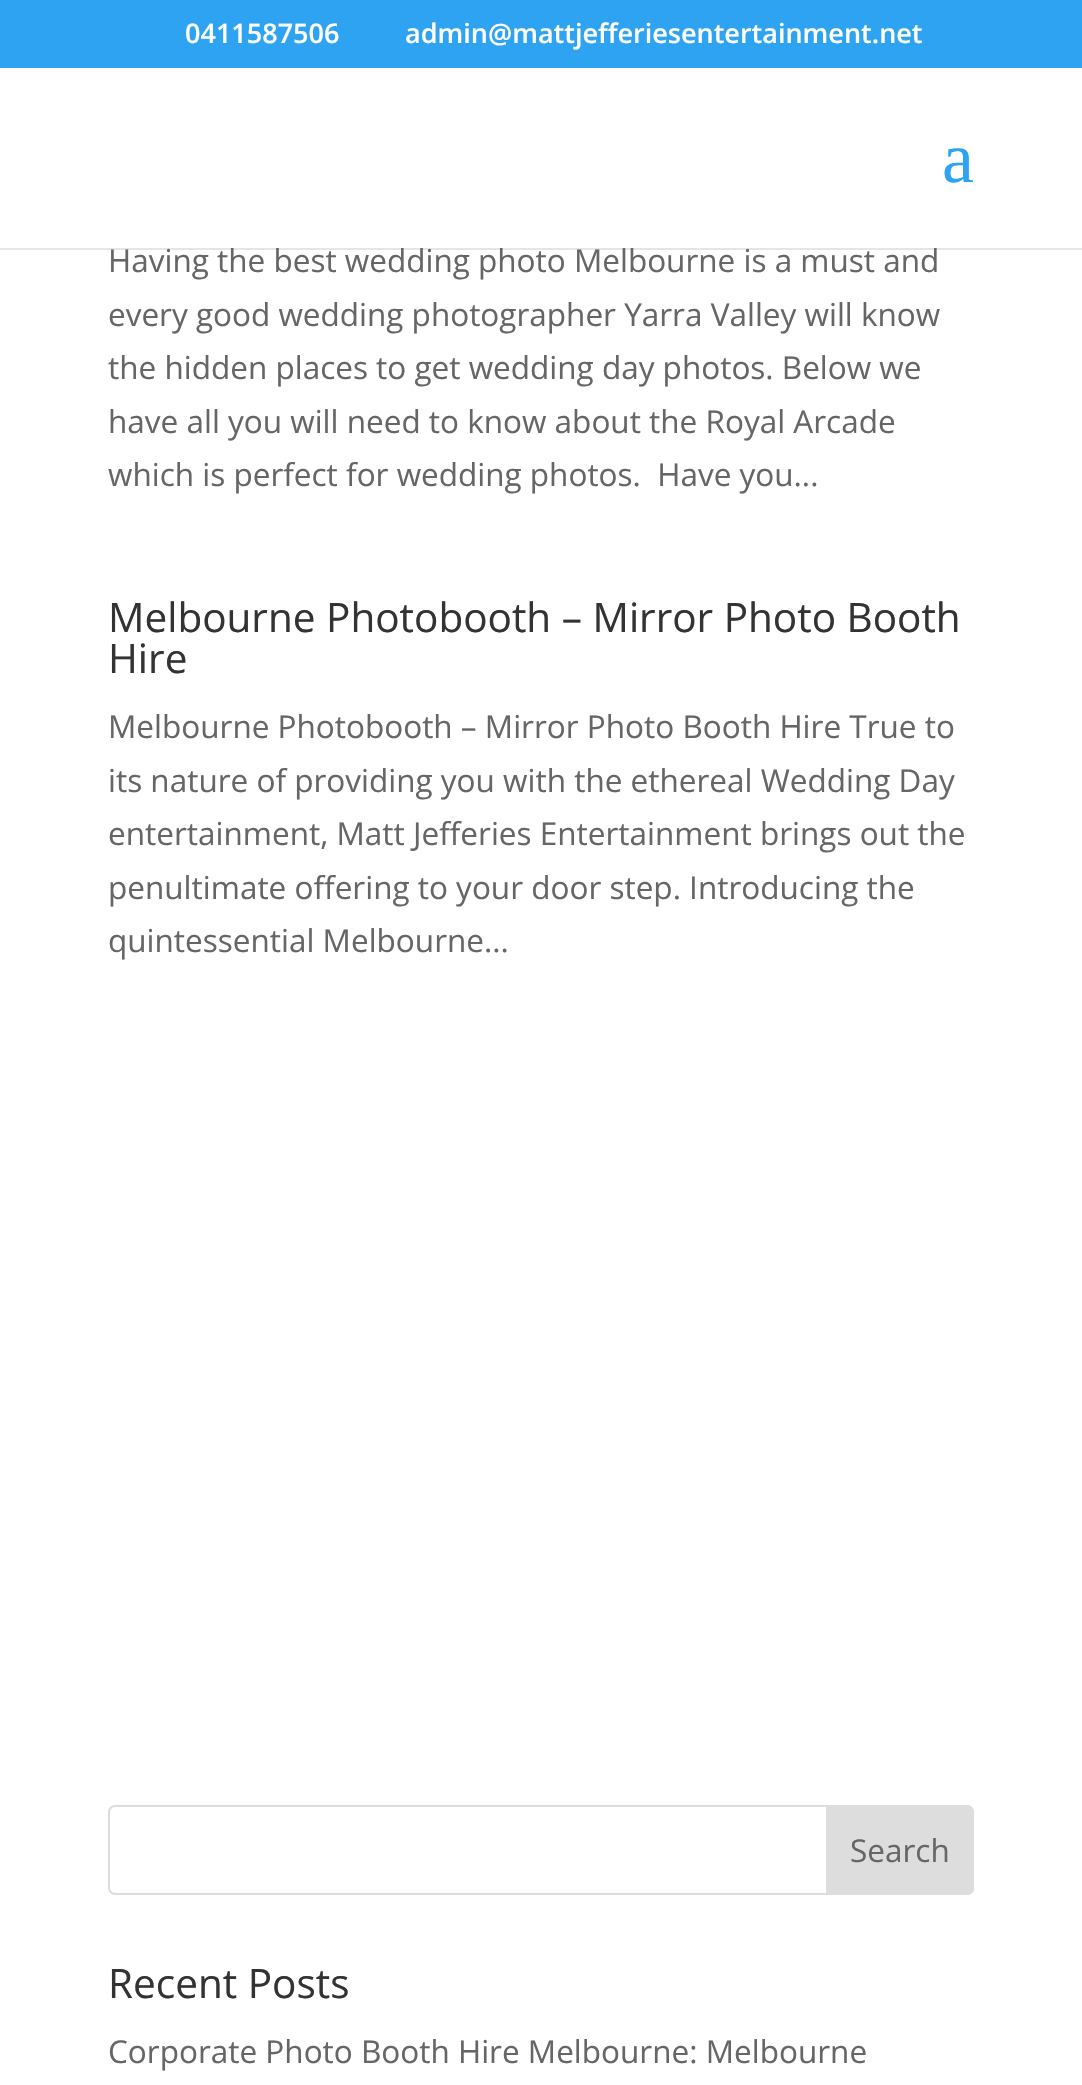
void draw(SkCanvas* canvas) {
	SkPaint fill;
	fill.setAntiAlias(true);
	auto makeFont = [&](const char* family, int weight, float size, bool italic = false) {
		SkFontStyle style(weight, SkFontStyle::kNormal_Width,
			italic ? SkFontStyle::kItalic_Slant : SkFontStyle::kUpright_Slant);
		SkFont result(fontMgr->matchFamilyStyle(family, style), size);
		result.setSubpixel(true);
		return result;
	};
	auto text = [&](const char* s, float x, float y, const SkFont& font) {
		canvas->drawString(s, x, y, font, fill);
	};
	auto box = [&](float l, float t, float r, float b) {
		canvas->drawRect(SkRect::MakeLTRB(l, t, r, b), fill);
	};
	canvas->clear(0xFFFFFFFF);
	fill.setColor(0xFF2EA3F2);
	box(0, 0, 1082, 68);
	fill.setColor(0x1A000000);
	box(0, 248, 1082, 250);
	fill.setStyle(SkPaint::kStroke_Style);
	fill.setStrokeWidth(2);
	fill.setColor(0xFFDDDDDD);
	canvas->drawRoundRect(SkRect::MakeLTRB(109, 1806, 973, 1894), 6, 6, fill);
	fill.setStyle(SkPaint::kFill_Style);
	canvas->drawPath(SkPathBuilder().moveTo(827, 1806).lineTo(967, 1806).cubicTo(970.5f, 1806, 973, 1808.5f, 973, 1812).lineTo(973, 1888).cubicTo(973, 1891.5f, 970.5f, 1894, 967, 1894).lineTo(827, 1894).close().detach(), fill);
	fill.setStyle(SkPaint::kStroke_Style);
	canvas->drawPath(SkPathBuilder().moveTo(827, 1806).lineTo(967, 1806).cubicTo(970.5f, 1806, 973, 1808.5f, 973, 1812).lineTo(973, 1888).cubicTo(973, 1891.5f, 970.5f, 1894, 967, 1894).lineTo(827, 1894).close().detach(), fill);
	auto font1 = makeFont("Open Sans", 600, 27);
	fill.setStyle(SkPaint::kFill_Style);
	fill.setColor(0xFFFFFFFF);
	text("0411587506", 185, 43, font1);
	text("admin@mattjefferiesentertainment.net", 405, 43, font1);
	auto font2 = makeFont("Liberation Serif", 400, 72);
	fill.setColor(0xFF2EA3F2);
	text("a", 942, 182, font2);
	auto font3 = makeFont("Open Sans", 400, 31.5f);
	fill.setColor(0xFF666666);
	text("Having the best wedding photo Melbourne is a must and", 108, 272, font3);
	text("every good wedding photographer Yarra Valley will know", 108, 326, font3);
	text("the hidden places to get wedding day photos. Below we", 108, 379, font3);
	text("have all you will need to know about the Royal Arcade", 108, 433, font3);
	text("which is perfect for wedding photos.  Have you...", 108, 486, font3);
	auto font4 = makeFont("Open Sans", 400, 40.5f);
	fill.setColor(0xFF333333);
	text("Melbourne Photobooth – Mirror Photo Booth", 108, 632, font4);
	text("Hire", 108, 673, font4);
	fill.setColor(0xFF666666);
	text("Melbourne Photobooth – Mirror Photo Booth Hire True to", 108, 738, font3);
	text("its nature of providing you with the ethereal Wedding Day", 108, 792, font3);
	text("entertainment, Matt Jefferies Entertainment brings out the", 108, 845, font3);
	text("penultimate offering to your door step. Introducing the", 108, 899, font3);
	text("quintessential Melbourne...", 108, 952, font3);
	text("Search", 850, 1862, font3);
	fill.setColor(0xFF333333);
	text("Recent Posts", 108, 1998, font4);
	fill.setColor(0xFF666666);
	text("Corporate Photo Booth Hire Melbourne: Melbourne", 108, 2063, font3);
}
